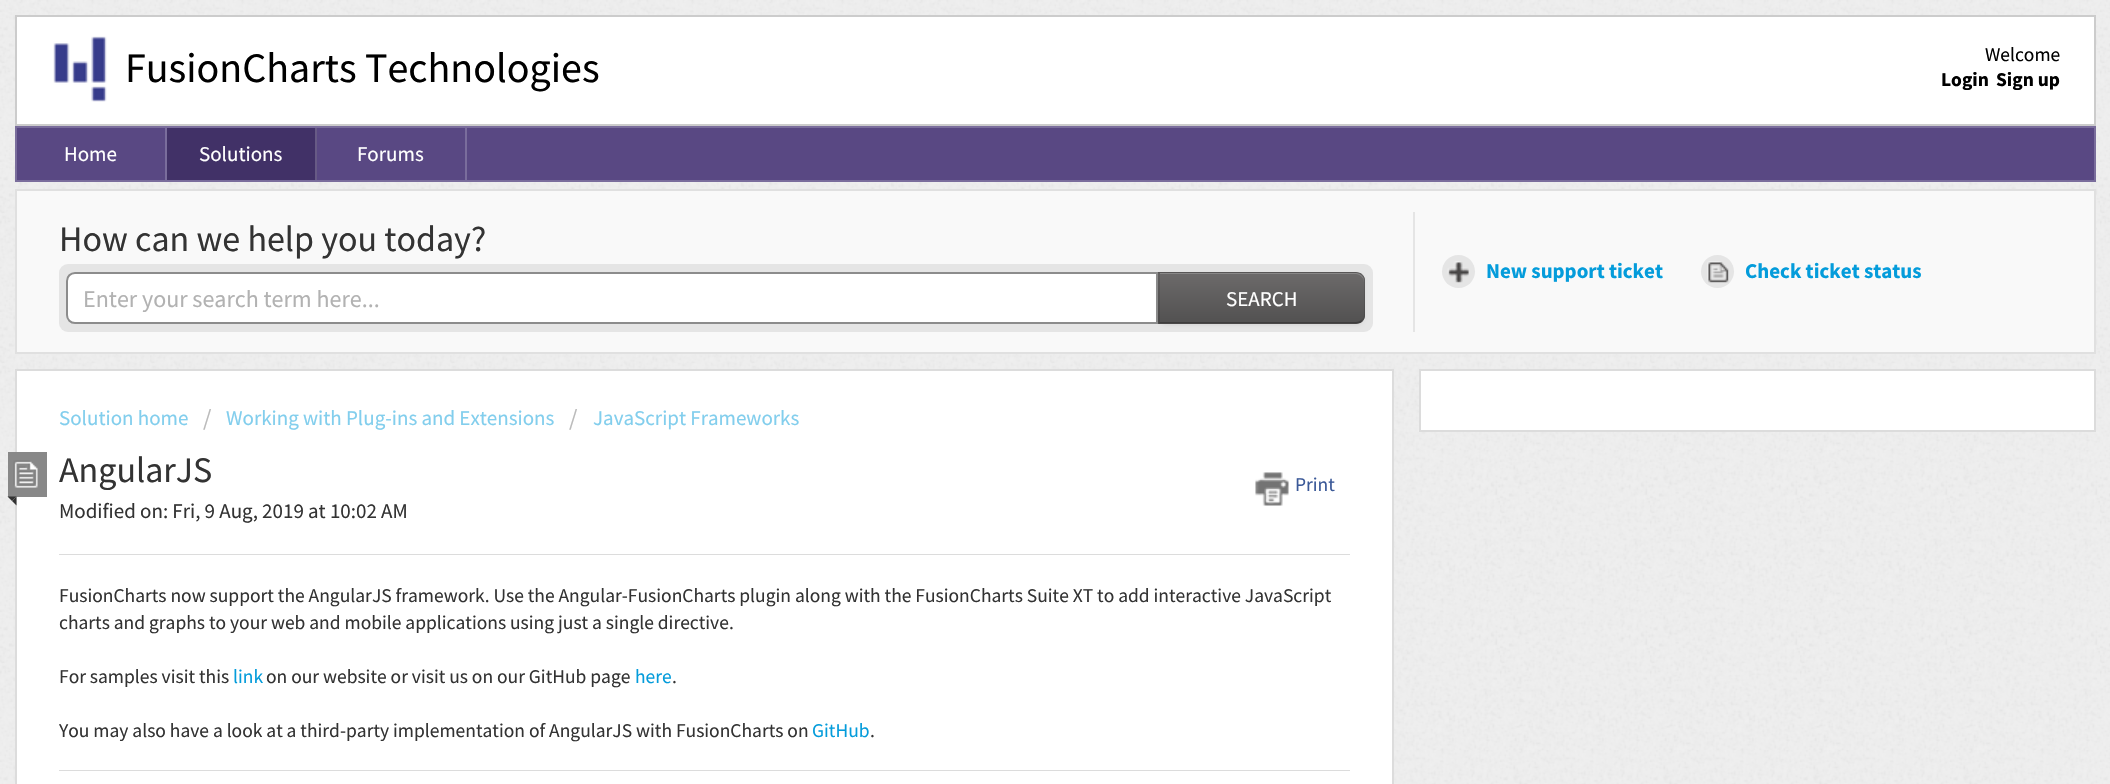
void draw(SkCanvas* canvas) {
	SkPaint fill;
	fill.setAntiAlias(true);
	auto makeFont = [&](const char* family, int weight, float size, bool italic = false) {
		SkFontStyle style(weight, SkFontStyle::kNormal_Width,
			italic ? SkFontStyle::kItalic_Slant : SkFontStyle::kUpright_Slant);
		SkFont result(fontMgr->matchFamilyStyle(family, style), size);
		result.setSubpixel(true);
		return result;
	};
	auto text = [&](const char* s, float x, float y, const SkFont& font) {
		canvas->drawString(s, x, y, font, fill);
	};
	auto box = [&](float l, float t, float r, float b) {
		canvas->drawRect(SkRect::MakeLTRB(l, t, r, b), fill);
	};
	auto roundBox = [&](float l, float t, float r, float b, float radius) {
		canvas->drawRoundRect(SkRect::MakeLTRB(l, t, r, b), radius, radius, fill);
	};
	auto picture = [&](const char* path, float l, float t, float r, float b) {
		auto image = SkImages::DeferredFromEncodedData(SkData::MakeFromFileName(path));
		canvas->drawImageRect(image, SkRect::MakeLTRB(l, t, r, b), SkSamplingOptions());
	};
	canvas->clear(0xFFEFEFEF);
	picture("image0.png", 0, 0, 2110, 784);
	fill.setColor(0xFFFFFFFF);
	canvas->drawRect(SkRect::MakeLTRB(16, 16, 2095, 125), fill);
	fill.setStyle(SkPaint::kStroke_Style);
	fill.setStrokeWidth(2);
	fill.setColor(0xFFCCCCCC);
	canvas->drawRect(SkRect::MakeLTRB(16, 16, 2095, 125), fill);
	picture("image1.png", 53, 36, 107, 102);
	fill.setStyle(SkPaint::kFill_Style);
	fill.setColor(0xFF594883);
	canvas->drawRect(SkRect::MakeLTRB(16, 127, 2095, 181), fill);
	fill.setStyle(SkPaint::kStroke_Style);
	fill.setColor(0xFF7A6D9C);
	canvas->drawRect(SkRect::MakeLTRB(16, 127, 2095, 181), fill);
	fill.setStyle(SkPaint::kFill_Style);
	box(165, 128, 167, 180);
	fill.setColor(0xFF413167);
	box(167, 128, 315, 180);
	fill.setColor(0xFF675A85);
	box(315, 128, 317, 180);
	fill.setColor(0xFF7A6D9C);
	box(465, 128, 467, 180);
	fill.setColor(0xFFF9F9F9);
	canvas->drawRect(SkRect::MakeLTRB(16, 190, 2095, 353), fill);
	fill.setStyle(SkPaint::kStroke_Style);
	fill.setColor(0xFFE0E0E0);
	canvas->drawRect(SkRect::MakeLTRB(16, 190, 2095, 353), fill);
	fill.setStyle(SkPaint::kFill_Style);
	fill.setColor(0xFFE5E5E5);
	box(1413, 212, 1415, 332);
	roundBox(59, 264, 1373, 332, 9);
	fill.setColor(0xFFFFFFFF);
	canvas->drawPath(SkPathBuilder().moveTo(75, 273).lineTo(1157, 273).lineTo(1157, 323).lineTo(75, 323).cubicTo(70.5f, 323, 67, 319.5f, 67, 315).lineTo(67, 281).cubicTo(67, 276.5f, 70.5f, 273, 75, 273).close().detach(), fill);
	fill.setStyle(SkPaint::kStroke_Style);
	fill.setColor(0xFF8C8C8C);
	canvas->drawPath(SkPathBuilder().moveTo(75, 273).lineTo(1157, 273).lineTo(1157, 323).lineTo(75, 323).cubicTo(70.5f, 323, 67, 319.5f, 67, 315).lineTo(67, 281).cubicTo(67, 276.5f, 70.5f, 273, 75, 273).close().detach(), fill);
	fill.setStyle(SkPaint::kFill_Style);
	fill.setColor(0x0D000000);
	fill.setMaskFilter(SkMaskFilter::MakeBlur(kNormal_SkBlurStyle, 1.5f));
	canvas->drawRoundRect(SkRect::MakeLTRB(1158, 273, 1365, 326), 9, 9, fill);
	fill.setMaskFilter(nullptr);
	fill.setColor(0xFF626060);
	canvas->drawPath(SkPathBuilder().moveTo(1158, 272).lineTo(1356, 272).cubicTo(1361, 272, 1365, 276, 1365, 281).lineTo(1365, 315).cubicTo(1365, 320, 1361, 324, 1356, 324).lineTo(1158, 324).close().detach(), fill);
	canvas->save();
	canvas->clipPath(SkPathBuilder().moveTo(1158, 272).lineTo(1356, 272).cubicTo(1361, 272, 1365, 276, 1365, 281).lineTo(1365, 315).cubicTo(1365, 320, 1361, 324, 1356, 324).lineTo(1158, 324).close().detach(), true);
	{
		const SkColor colors[] = {0xFF6C6A6A, 0xFF525151};
		const float stops[] = {0, 1};
		const SkPoint ends[] = {{1262, 273}, {1262, 323}};
		fill.setShader(SkGradientShader::MakeLinear(ends, colors, stops, 2, SkTileMode::kClamp));
		fill.setAlpha(255);
	}
	box(1158, 273, 1365, 323);
	canvas->restore();
	fill.setShader(nullptr);
	fill.setColor(0xFF898888);
	canvas->drawPath(SkPathBuilder().moveTo(1160, 274).lineTo(1356, 274).cubicTo(1360, 274, 1364, 278, 1364, 282).lineTo(1364, 281).cubicTo(1364, 277, 1360, 273, 1356, 273).lineTo(1160, 273).close().detach(), fill);
	fill.setColor(0x1A000000);
	canvas->drawPath(SkPathBuilder().moveTo(1160, 273).lineTo(1356, 273).cubicTo(1358, 273, 1360, 274, 1362, 275).lineTo(1362, 274).cubicTo(1361, 273, 1358, 272, 1356, 272).lineTo(1158, 272).lineTo(1160, 274).close().detach(), fill);
	canvas->drawPath(SkPathBuilder().moveTo(1362, 274).cubicTo(1364, 276, 1365, 278, 1365, 280).lineTo(1365, 315).cubicTo(1365, 318, 1364, 320, 1362, 321).lineTo(1361, 320).cubicTo(1363, 319, 1364, 317, 1364, 315).lineTo(1364, 280).cubicTo(1364, 278, 1363, 276, 1362, 275).close().detach(), fill);
	fill.setColor(0x40000000);
	canvas->drawPath(SkPathBuilder().moveTo(1356, 324).cubicTo(1358, 324, 1361, 323, 1362, 321).lineTo(1361, 320).cubicTo(1360, 321, 1358, 322, 1356, 322).lineTo(1160, 322).lineTo(1158, 324).close().detach(), fill);
	fill.setColor(0x1A000000);
	canvas->drawPath(SkPathBuilder().moveTo(1158, 324).lineTo(1160, 322).lineTo(1160, 274).lineTo(1158, 272).close().detach(), fill);
	fill.setColor(0xFFE5E5E5);
	canvas->drawCircle(1458.5f, 271.5f, 16.5f, fill);
	picture("image2.png", 1447, 261, 1469, 283);
	canvas->drawCircle(1717.5f, 271.5f, 16.5f, fill);
	picture("image3.png", 1707, 261, 1729, 283);
	fill.setColor(0xFFFFFFFF);
	canvas->drawRect(SkRect::MakeLTRB(1420, 370, 2095, 431), fill);
	fill.setStyle(SkPaint::kStroke_Style);
	fill.setColor(0xFFDCDCDC);
	canvas->drawRect(SkRect::MakeLTRB(1420, 370, 2095, 431), fill);
	fill.setStyle(SkPaint::kFill_Style);
	fill.setColor(0xFFFFFFFF);
	canvas->drawRect(SkRect::MakeLTRB(16, 370, 1393, 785), fill);
	fill.setStyle(SkPaint::kStroke_Style);
	fill.setColor(0xFFDCDCDC);
	canvas->drawRect(SkRect::MakeLTRB(16, 370, 1393, 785), fill);
	fill.setStyle(SkPaint::kFill_Style);
	fill.setColor(0xFF888888);
	box(8, 452, 47, 497);
	picture("image4.png", 13, 460, 38, 488);
	fill.setColor(0xFF333333);
	canvas->drawPath(SkPathBuilder().moveTo(7.5f, 496.5f).lineTo(16.5f, 496.5f).lineTo(12, 501).close().detach(), fill);
	canvas->drawPath(SkPathBuilder().moveTo(16.5f, 496.5f).lineTo(16.5f, 505.5f).lineTo(12, 501).close().detach(), fill);
	picture("image5.png", 1255, 472, 1289, 506);
	fill.setColor(0xFFDCDCDC);
	box(59, 554, 1350, 555);
	box(59, 770, 1350, 771);
	auto font1 = makeFont("Source Sans Pro", 400, 42);
	fill.setColor(0xFF000000);
	text("FusionCharts Technologies", 125, 82, font1);
	auto font2 = makeFont("Source Sans Pro", 400, 19.5f);
	text("Welcome", 1985, 61, font2);
	auto font3 = makeFont("Source Sans Pro", 700, 19.5f);
	text("Login", 1941, 86, font3);
	text("Sign up", 1996, 86, font3);
	auto font4 = makeFont("Source Sans Pro", 400, 21);
	fill.setColor(0xFFFFFFFF);
	text("Home", 64, 161, font4);
	text("Solutions", 199, 161, font4);
	text("Forums", 357, 161, font4);
	auto font5 = makeFont("Source Sans Pro", 400, 36);
	fill.setColor(0xFF333333);
	text("How can we help you today?", 59, 251, font5);
	auto font6 = makeFont("Source Sans Pro", 400, 24);
	fill.setColor(0xFFB2B2B2);
	text("Enter your search term here...", 83, 307, font6);
	fill.setColor(0xFFFFFFFF);
	text("SEARCH", 1226, 306, font4);
	auto font7 = makeFont("Source Sans Pro", 700, 21);
	fill.setColor(0xFF049CDB);
	text("New support ticket", 1486, 278, font7);
	text("Check ticket status", 1745, 278, font7);
	fill.setColor(0xFF82CEED);
	text("Solution home", 59, 425, font4);
	fill.setColor(0xFFBBBBBB);
	text("/", 203, 426, font6);
	fill.setColor(0xFF82CEED);
	text("Working with Plug-ins and Extensions", 226, 425, font4);
	fill.setColor(0xFFBBBBBB);
	text("/", 569, 426, font6);
	fill.setColor(0xFF82CEED);
	text("JavaScript Frameworks", 593, 425, font4);
	fill.setColor(0xFF333333);
	text("AngularJS", 59, 482, font5);
	fill.setColor(0xFF3B5998);
	text("Print", 1295, 491, font2);
	fill.setColor(0xFF333333);
	text("Modified on: Fri, 9 Aug, 2019 at 10:02 AM", 59, 518, font4);
	text("FusionCharts now support the AngularJS framework. Use the Angular-FusionCharts plugin along with the FusionCharts Suite XT to add interactive JavaScript", 59, 602, font2);
	text("charts and graphs to your web and mobile applications using just a single directive.", 59, 629, font2);
	text("For samples visit this", 59, 683, font2);
	fill.setColor(0xFF049CDB);
	text("link", 233, 683, font2);
	fill.setColor(0xFF333333);
	text("on our website or visit us on our GitHub page", 266, 683, font2);
	fill.setColor(0xFF049CDB);
	text("here", 635, 683, font2);
	fill.setColor(0xFF333333);
	text(".", 672, 683, font2);
	text("You may also have a look at a third-party implementation of AngularJS with FusionCharts on", 59, 737, font2);
	fill.setColor(0xFF049CDB);
	text("GitHub", 812, 737, font2);
	fill.setColor(0xFF333333);
	text(".", 870, 737, font2);
}
